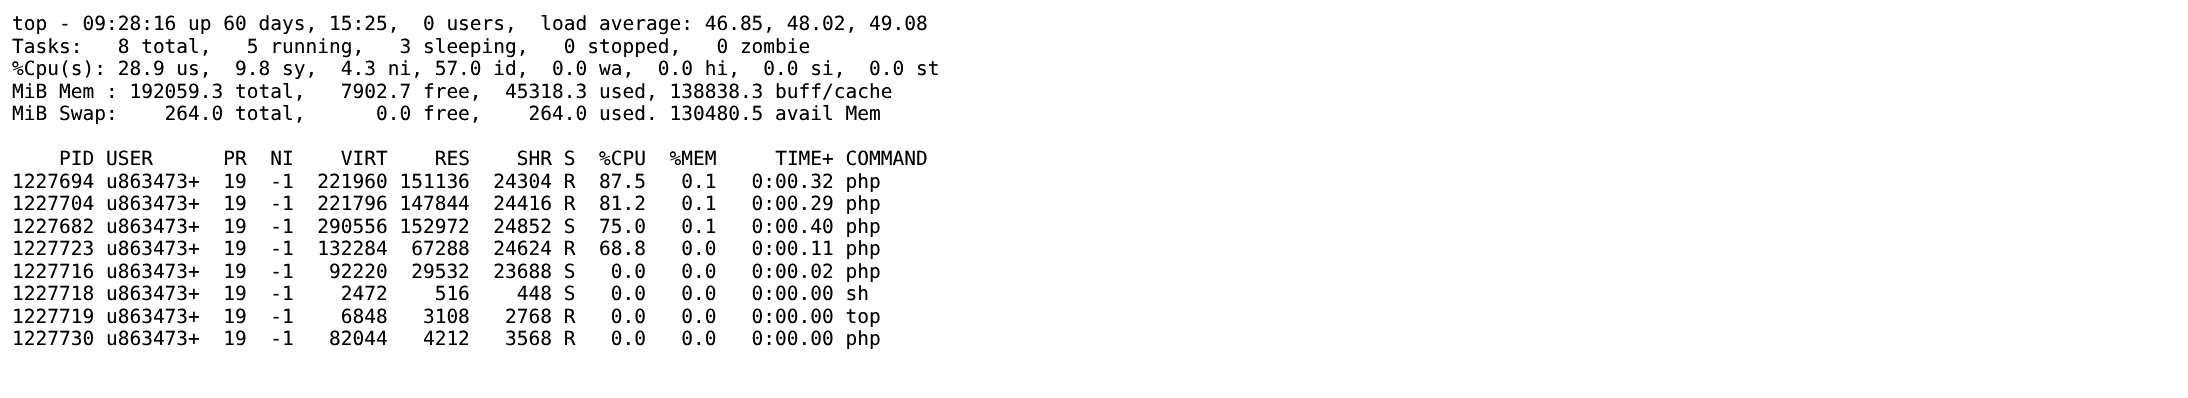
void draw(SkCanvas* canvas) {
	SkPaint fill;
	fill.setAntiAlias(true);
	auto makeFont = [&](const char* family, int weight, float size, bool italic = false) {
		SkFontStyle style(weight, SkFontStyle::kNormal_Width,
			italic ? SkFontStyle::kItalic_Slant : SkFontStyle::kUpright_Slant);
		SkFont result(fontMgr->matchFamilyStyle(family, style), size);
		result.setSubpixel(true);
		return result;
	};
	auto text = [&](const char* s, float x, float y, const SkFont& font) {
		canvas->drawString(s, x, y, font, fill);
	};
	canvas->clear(0xFFFFFFFF);
	auto font1 = makeFont("DejaVu Sans Mono", 400, 19.5f);
	fill.setColor(0xFF000000);
	text("top - 09:28:16 up 60 days, 15:25,  0 users,  load average: 46.85, 48.02, 49.08", 12, 30, font1);
	text("Tasks:   8 total,   5 running,   3 sleeping,   0 stopped,   0 zombie", 12, 53, font1);
	text("%Cpu(s): 28.9 us,  9.8 sy,  4.3 ni, 57.0 id,  0.0 wa,  0.0 hi,  0.0 si,  0.0 st", 12, 75, font1);
	text("MiB Mem : 192059.3 total,   7902.7 free,  45318.3 used, 138838.3 buff/cache", 12, 98, font1);
	text("MiB Swap:    264.0 total,      0.0 free,    264.0 used. 130480.5 avail Mem", 12, 120, font1);
	text("PID USER      PR  NI    VIRT    RES    SHR S  %CPU  %MEM     TIME+ COMMAND", 59, 165, font1);
	text("1227694 u863473+  19  -1  221960 151136  24304 R  87.5   0.1   0:00.32 php", 12, 188, font1);
	text("1227704 u863473+  19  -1  221796 147844  24416 R  81.2   0.1   0:00.29 php", 12, 210, font1);
	text("1227682 u863473+  19  -1  290556 152972  24852 S  75.0   0.1   0:00.40 php", 12, 233, font1);
	text("1227723 u863473+  19  -1  132284  67288  24624 R  68.8   0.0   0:00.11 php", 12, 255, font1);
	text("1227716 u863473+  19  -1   92220  29532  23688 S   0.0   0.0   0:00.02 php", 12, 278, font1);
	text("1227718 u863473+  19  -1    2472    516    448 S   0.0   0.0   0:00.00 sh", 12, 300, font1);
	text("1227719 u863473+  19  -1    6848   3108   2768 R   0.0   0.0   0:00.00 top", 12, 323, font1);
	text("1227730 u863473+  19  -1   82044   4212   3568 R   0.0   0.0   0:00.00 php", 12, 345, font1);
}
